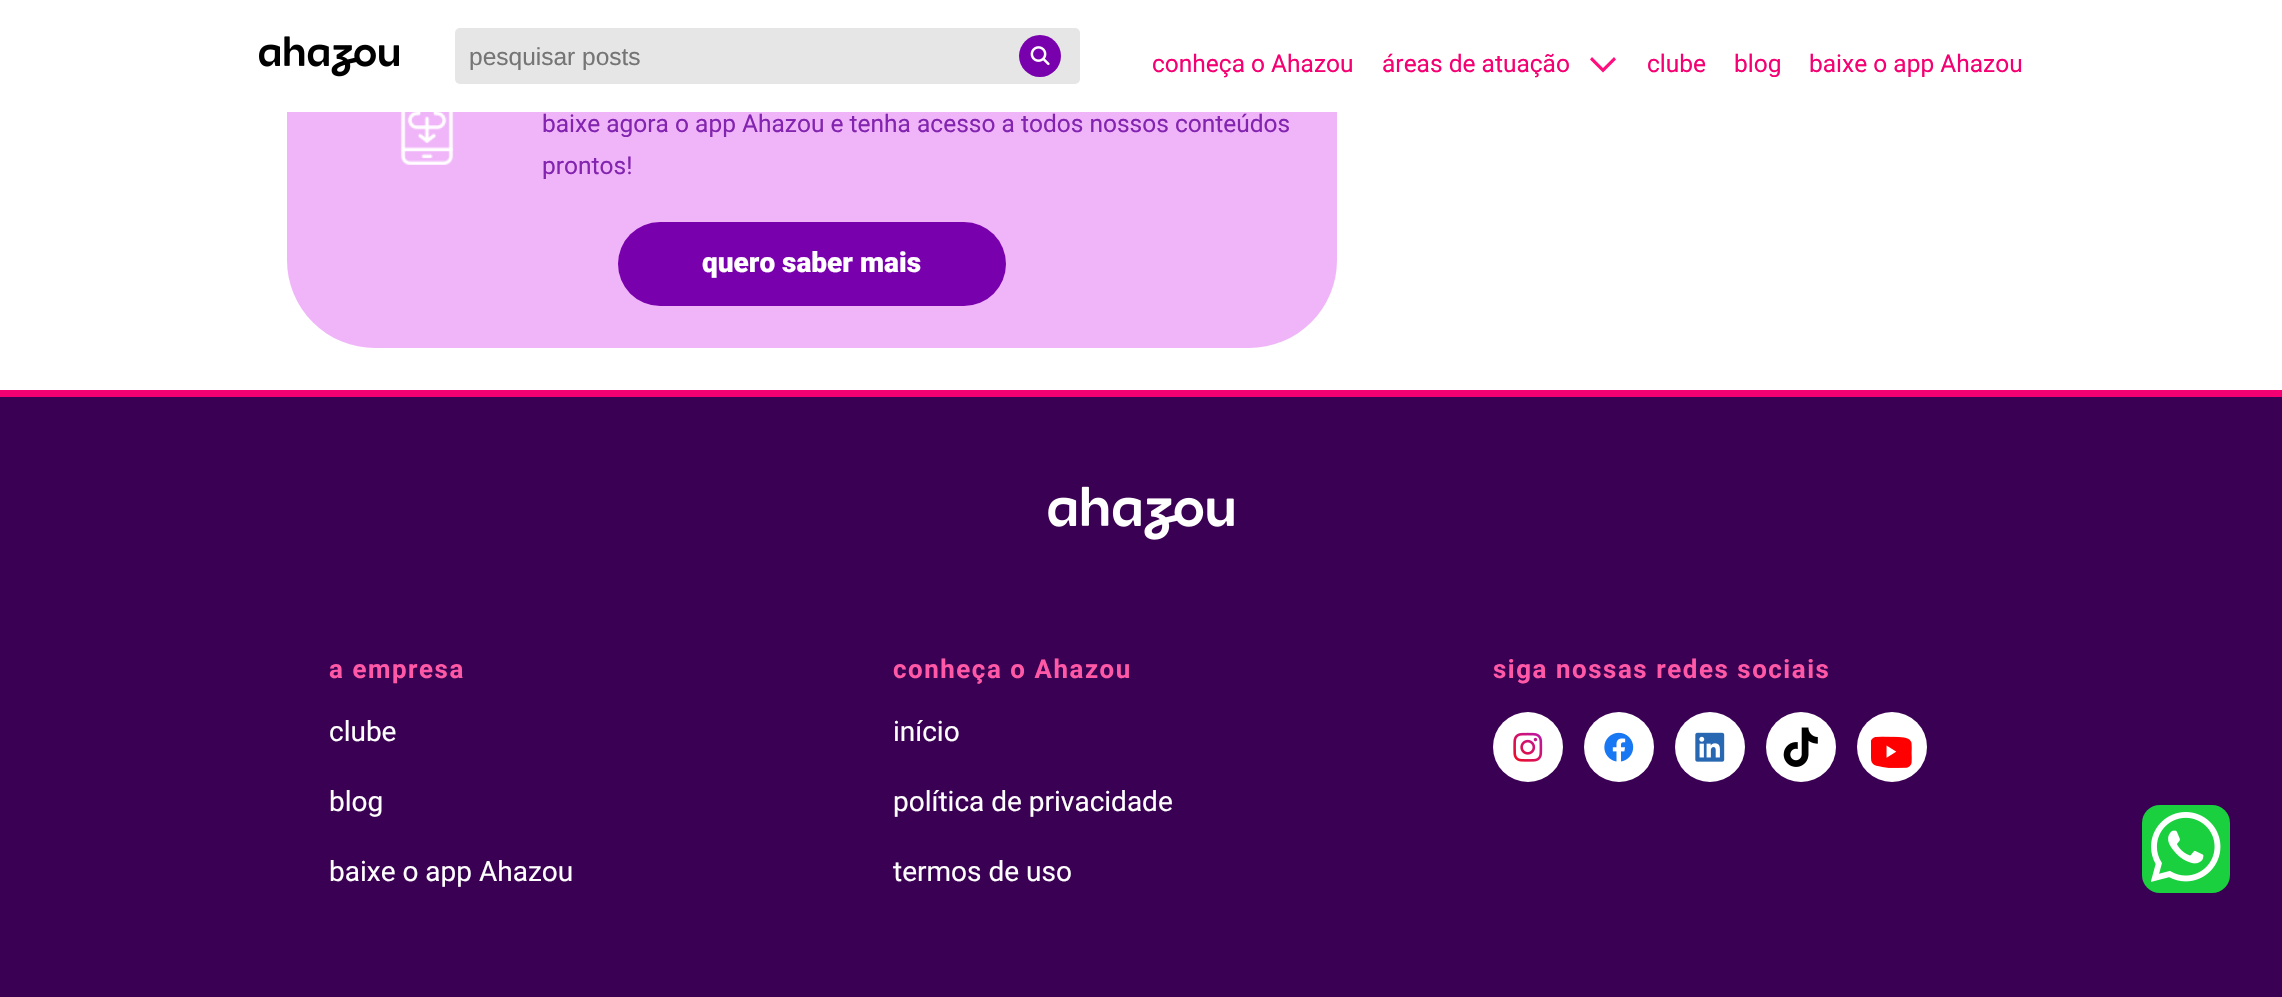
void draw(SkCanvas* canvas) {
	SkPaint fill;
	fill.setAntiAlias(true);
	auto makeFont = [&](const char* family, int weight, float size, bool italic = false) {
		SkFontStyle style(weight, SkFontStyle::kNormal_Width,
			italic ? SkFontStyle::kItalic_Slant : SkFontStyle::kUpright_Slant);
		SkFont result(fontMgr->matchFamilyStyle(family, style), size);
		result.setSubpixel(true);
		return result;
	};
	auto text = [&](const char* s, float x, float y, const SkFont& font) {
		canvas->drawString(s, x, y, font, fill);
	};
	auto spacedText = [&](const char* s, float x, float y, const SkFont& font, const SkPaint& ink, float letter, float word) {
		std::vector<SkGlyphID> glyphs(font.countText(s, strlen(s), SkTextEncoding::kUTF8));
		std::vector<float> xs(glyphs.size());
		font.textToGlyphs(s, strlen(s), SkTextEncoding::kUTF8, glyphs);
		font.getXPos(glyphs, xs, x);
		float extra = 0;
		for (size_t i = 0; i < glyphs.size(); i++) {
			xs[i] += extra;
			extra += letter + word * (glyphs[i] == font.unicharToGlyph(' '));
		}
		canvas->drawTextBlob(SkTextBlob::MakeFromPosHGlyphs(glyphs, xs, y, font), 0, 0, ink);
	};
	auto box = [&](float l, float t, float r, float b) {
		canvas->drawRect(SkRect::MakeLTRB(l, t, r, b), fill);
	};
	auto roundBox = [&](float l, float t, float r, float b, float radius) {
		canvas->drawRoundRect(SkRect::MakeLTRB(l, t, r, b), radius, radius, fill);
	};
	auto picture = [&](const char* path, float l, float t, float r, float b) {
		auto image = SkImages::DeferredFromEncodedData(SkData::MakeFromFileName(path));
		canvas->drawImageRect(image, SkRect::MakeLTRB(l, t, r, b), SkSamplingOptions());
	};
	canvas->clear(0xFFFFFFFF);
	fill.setColor(0xFFF0B4F9);
	roundBox(287, -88, 1337, 348, 88);
	fill.setColor(0xFFFFFFFF);
	box(287, 0, 1337, 112);
	picture("image0.png", 259, 36, 399, 77);
	fill.setColor(0xFFE6E6E6);
	roundBox(455, 28, 1080, 84, 5);
	fill.setColor(0xFF7900AD);
	canvas->drawCircle(1040, 56, 21, fill);
	picture("image1.png", 1030, 46, 1050, 66);
	fill.setColor(0xFFFF0F7E);
	canvas->drawPath(SkPathBuilder().moveTo(1592, 57).lineTo(1590, 59.5f).lineTo(1603, 72.5f).lineTo(1616, 59.5f).lineTo(1614, 57).lineTo(1603, 68).close().detach(), fill);
	picture("image2.png", 400, 112, 454, 165);
	fill.setColor(0xFF7900AD);
	roundBox(618, 222, 1006, 306, 42);
	fill.setColor(0xFF3A0053);
	box(0, 397, 2282, 997);
	fill.setColor(0xFFF50072);
	box(0, 390, 2282, 397);
	picture("image3.png", 1048, 486, 1234, 540);
	fill.setColor(0xFFFFFFFF);
	canvas->drawCircle(1528, 747, 35, fill);
	picture("image4.png", 1513, 732, 1543, 762);
	canvas->drawCircle(1619, 747, 35, fill);
	picture("image5.png", 1604, 732, 1634, 762);
	canvas->drawCircle(1710, 747, 35, fill);
	picture("image6.png", 1695, 732, 1725, 762);
	canvas->drawCircle(1801, 747, 35, fill);
	picture("image7.png", 1783, 727, 1818, 767);
	canvas->drawCircle(1892, 747, 35, fill);
	picture("image8.png", 1871, 736, 1912, 768);
	fill.setColor(0xFF1AD03F);
	roundBox(2142, 805, 2230, 893, 18);
	picture("image9.png", 2151, 812, 2221, 882);
	canvas->save();
	canvas->clipRect(SkRect::MakeLTRB(469, 42, 1024, 70));
	auto font1 = makeFont("Liberation Sans", 400, 24.5f);
	fill.setColor(0xFF757575);
	text("pesquisar posts", 469, 65, font1);
	canvas->restore();
	auto font2 = makeFont("Roboto", 400, 24.5f);
	fill.setColor(0xFFF50072);
	text("conheça o Ahazou", 1152, 72, font2);
	text("áreas de atuação", 1382, 72, font2);
	text("clube", 1647, 72, font2);
	text("blog", 1734, 72, font2);
	text("baixe o app Ahazou", 1809, 72, font2);
	fill.setColor(0xFF8224AF);
	text("baixe agora o app Ahazou e tenha acesso a todos nossos conteúdos", 542, 132, font2);
	text("prontos!", 542, 174, font2);
	auto font3 = makeFont("Roboto", 900, 28);
	fill.setColor(0xFFFFFFFF);
	text("quero saber mais", 702, 272, font3);
	auto font4 = makeFont("Roboto", 700, 25.9f);
	fill.setColor(0xFFFF58A6);
	spacedText("a empresa", 329, 678, font4, fill, 1.55f, 0);
	auto font5 = makeFont("Roboto", 400, 28);
	fill.setColor(0xFFFFFFFF);
	text("clube", 329, 741, font5);
	text("blog", 329, 811, font5);
	text("baixe o app Ahazou", 329, 881, font5);
	fill.setColor(0xFFFF58A6);
	spacedText("conheça o Ahazou", 893, 678, font4, fill, 1.55f, 0);
	fill.setColor(0xFFFFFFFF);
	text("início", 893, 741, font5);
	text("política de privacidade", 893, 811, font5);
	text("termos de uso", 893, 881, font5);
	fill.setColor(0xFFFF58A6);
	spacedText("siga nossas redes sociais", 1493, 678, font4, fill, 1.55f, 0);
}
